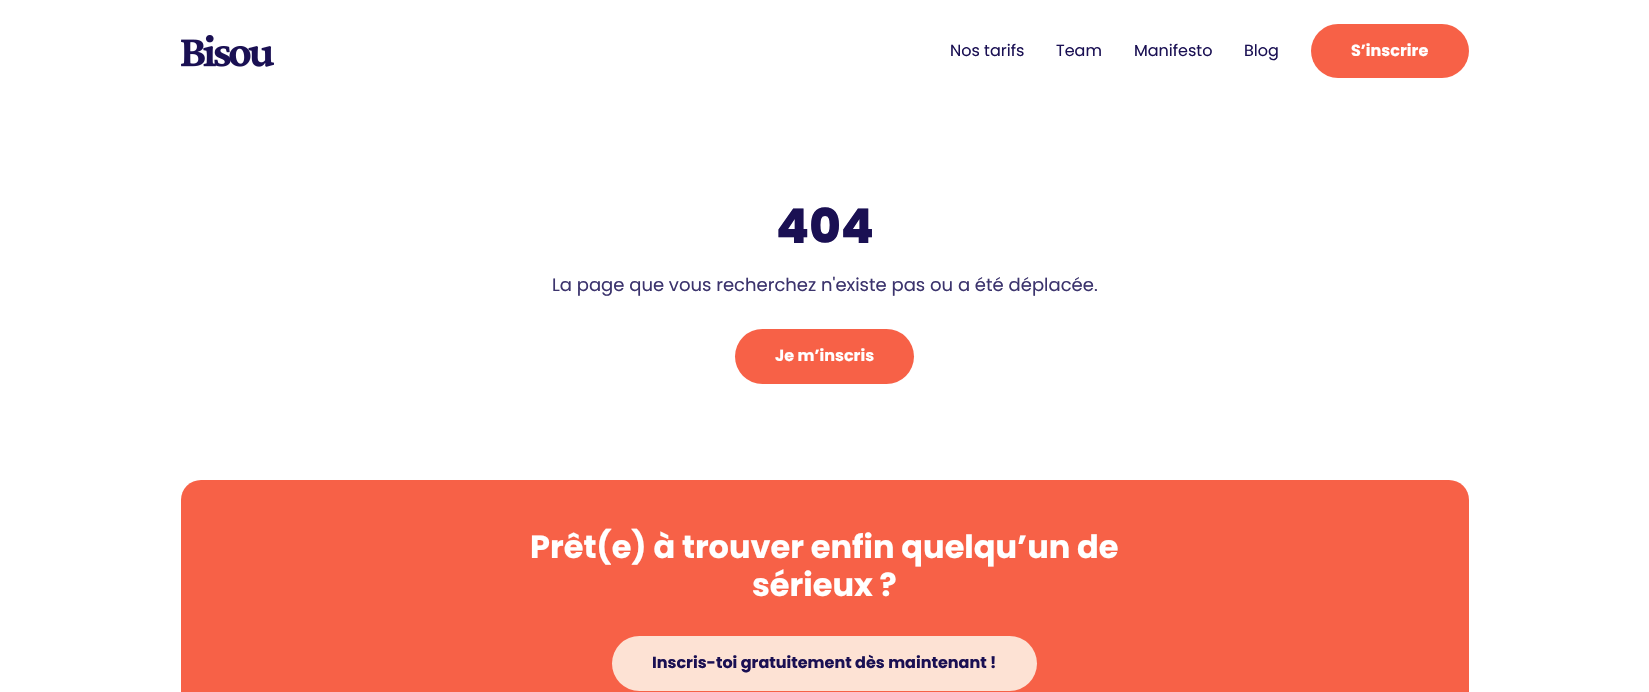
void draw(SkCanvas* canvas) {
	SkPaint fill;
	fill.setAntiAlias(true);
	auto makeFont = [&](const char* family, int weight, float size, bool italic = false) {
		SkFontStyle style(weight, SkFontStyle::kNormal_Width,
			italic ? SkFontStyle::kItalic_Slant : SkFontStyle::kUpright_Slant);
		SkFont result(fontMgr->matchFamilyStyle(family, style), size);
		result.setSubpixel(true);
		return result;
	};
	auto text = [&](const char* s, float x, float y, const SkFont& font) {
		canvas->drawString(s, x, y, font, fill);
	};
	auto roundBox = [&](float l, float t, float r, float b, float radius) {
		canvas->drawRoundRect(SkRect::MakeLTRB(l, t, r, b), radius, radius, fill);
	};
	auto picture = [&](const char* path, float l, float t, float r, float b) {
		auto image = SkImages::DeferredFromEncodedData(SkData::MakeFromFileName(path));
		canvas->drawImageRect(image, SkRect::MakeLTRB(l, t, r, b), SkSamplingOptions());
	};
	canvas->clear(0xFFFFFFFF);
	picture("image0.png", 181, 35, 274, 67);
	fill.setColor(0xFFF76147);
	roundBox(1311, 24, 1469, 78, 27);
	roundBox(735, 329, 914, 384, 27.5f);
	roundBox(181, 480, 1469, 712, 20);
	fill.setColor(0xFFFDE2D4);
	roundBox(612, 636, 1037, 691, 27.5f);
	auto font1 = makeFont("Poppins", 400, 16);
	fill.setColor(0xFF1A1053);
	text("Nos tarifs", 950, 56, font1);
	text("Team", 1056, 56, font1);
	text("Manifesto", 1134, 56, font1);
	text("Blog", 1244, 56, font1);
	auto font2 = makeFont("Poppins", 700, 16);
	fill.setColor(0xFFFFFFFF);
	text("S’inscrire", 1351, 56, font2);
	auto font3 = makeFont("Poppins", 800, 48);
	fill.setColor(0xFF1A1053);
	text("404", 776, 243, font3);
	auto font4 = makeFont("Poppins", 400, 18);
	fill.setColor(0xFF3C346D);
	text("La page que vous recherchez n'existe pas ou a été déplacée.", 552, 291, font4);
	fill.setColor(0xFFFFFFFF);
	text("Je m’inscris", 775, 361, font2);
	auto font5 = makeFont("Poppins", 700, 32);
	text("Prêt(e) à trouver enfin quelqu’un de", 530, 558, font5);
	text("sérieux ?", 752, 596, font5);
	fill.setColor(0xFF1A1053);
	text("Inscris-toi gratuitement dès maintenant !", 652, 668, font2);
}
